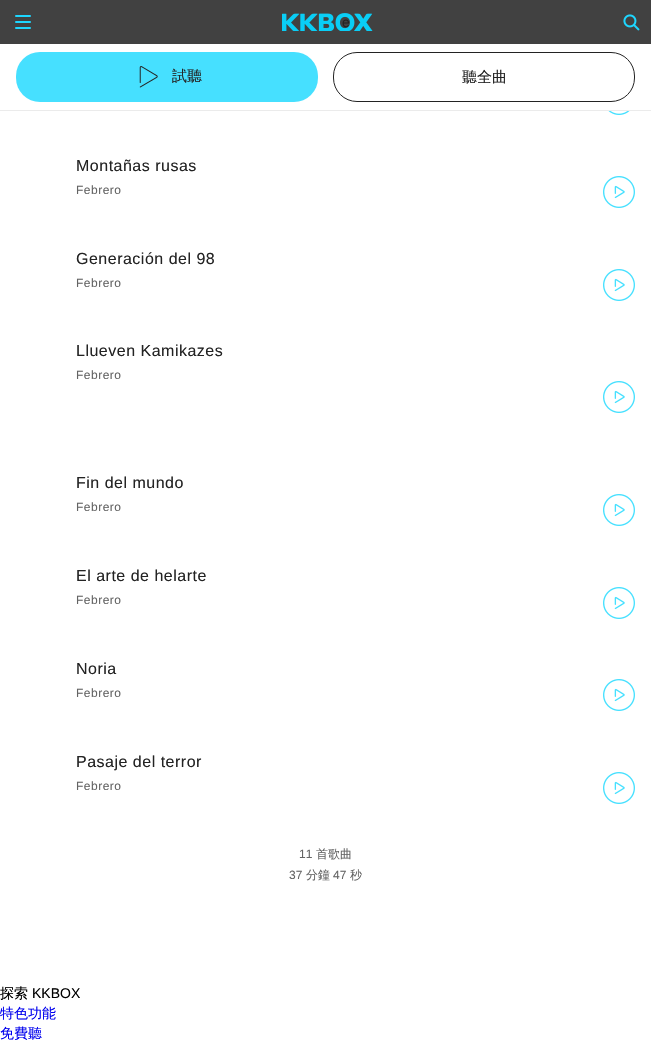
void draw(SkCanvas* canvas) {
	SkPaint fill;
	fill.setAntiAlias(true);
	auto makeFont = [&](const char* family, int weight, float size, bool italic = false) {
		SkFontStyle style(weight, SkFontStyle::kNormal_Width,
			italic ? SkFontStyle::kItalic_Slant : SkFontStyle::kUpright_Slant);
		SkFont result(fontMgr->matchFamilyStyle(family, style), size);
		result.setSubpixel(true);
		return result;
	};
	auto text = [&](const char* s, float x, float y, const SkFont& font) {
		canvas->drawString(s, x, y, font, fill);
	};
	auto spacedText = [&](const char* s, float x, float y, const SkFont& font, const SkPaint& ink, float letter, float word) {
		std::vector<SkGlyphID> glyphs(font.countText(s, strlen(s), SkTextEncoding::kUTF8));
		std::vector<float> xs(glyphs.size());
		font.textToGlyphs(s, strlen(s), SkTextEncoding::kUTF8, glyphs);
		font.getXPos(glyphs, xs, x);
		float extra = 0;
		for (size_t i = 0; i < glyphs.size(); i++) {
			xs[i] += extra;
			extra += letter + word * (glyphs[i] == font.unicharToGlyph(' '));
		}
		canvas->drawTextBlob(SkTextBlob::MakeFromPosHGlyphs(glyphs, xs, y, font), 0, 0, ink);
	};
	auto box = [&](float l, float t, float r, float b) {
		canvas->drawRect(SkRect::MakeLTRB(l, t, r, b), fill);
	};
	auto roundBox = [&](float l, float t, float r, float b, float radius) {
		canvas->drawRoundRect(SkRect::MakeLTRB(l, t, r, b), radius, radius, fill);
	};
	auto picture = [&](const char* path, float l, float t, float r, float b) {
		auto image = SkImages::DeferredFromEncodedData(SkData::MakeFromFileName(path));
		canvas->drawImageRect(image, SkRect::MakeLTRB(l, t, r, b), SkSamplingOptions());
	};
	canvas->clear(0xFFFFFFFF);
	fill.setColor(0xFF414141);
	box(0, 0, 651, 44);
	fill.setColor(0xFF1DD6FF);
	roundBox(15, 15, 31, 17, 1);
	roundBox(15, 21, 31, 23, 1);
	roundBox(15, 27, 31, 29, 1);
	picture("image1.png", 623, 14, 640, 31);
	fill.setColor(0xFFEBEBEB);
	box(0, 110, 651, 111);
	fill.setColor(0xFF46E0FF);
	roundBox(16, 52, 318, 102, 24);
	picture("image2.png", 139, 66, 158, 88);
	fill.setStyle(SkPaint::kStroke_Style);
	fill.setStrokeWidth(1);
	fill.setColor(0xFF232323);
	canvas->drawRoundRect(SkRect::MakeLTRB(333.5f, 52.5f, 634.5f, 101.5f), 23.5f, 23.5f, fill);
	picture("image3.png", 608, 111, 630, 115);
	picture("image4.png", 603, 176, 635, 208);
	picture("image4.png", 603, 269, 635, 301);
	picture("image4.png", 603, 381, 635, 413);
	picture("image4.png", 603, 494, 635, 526);
	picture("image4.png", 603, 587, 635, 619);
	picture("image4.png", 603, 679, 635, 711);
	picture("image4.png", 603, 772, 635, 804);
	auto font1 = makeFont("Liberation Sans", 400, 14);
	fill.setStyle(SkPaint::kFill_Style);
	text("e", 342, 27, font1);
	picture("image0.png", 282, 13, 373, 31);
	auto font2 = makeFont("WenQuanYi Zen Hei", 500, 15);
	text("試聽", 172, 81, font2);
	text("聽全曲", 462, 82, font2);
	auto font3 = makeFont("Liberation Sans", 400, 16);
	spacedText("Montañas rusas", 76, 171, font3, fill, 0.5f, 0);
	auto font4 = makeFont("Liberation Sans", 400, 12);
	fill.setColor(0xFF646464);
	spacedText("Febrero", 76, 194, font4, fill, 0.5f, 0);
	fill.setColor(0xFF232323);
	spacedText("Generación del 98", 76, 264, font3, fill, 0.5f, 0);
	fill.setColor(0xFF646464);
	spacedText("Febrero", 76, 287, font4, fill, 0.5f, 0);
	fill.setColor(0xFF232323);
	spacedText("Llueven Kamikazes", 76, 356, font3, fill, 0.5f, 0);
	fill.setColor(0xFF646464);
	spacedText("Febrero", 76, 379, font4, fill, 0.5f, 0);
	fill.setColor(0xFF232323);
	spacedText("Fin del mundo", 76, 488, font3, fill, 0.5f, 0);
	fill.setColor(0xFF646464);
	spacedText("Febrero", 76, 511, font4, fill, 0.5f, 0);
	fill.setColor(0xFF232323);
	spacedText("El arte de helarte", 76, 581, font3, fill, 0.5f, 0);
	fill.setColor(0xFF646464);
	spacedText("Febrero", 76, 604, font4, fill, 0.5f, 0);
	fill.setColor(0xFF232323);
	spacedText("Noria", 76, 674, font3, fill, 0.5f, 0);
	fill.setColor(0xFF646464);
	spacedText("Febrero", 76, 697, font4, fill, 0.5f, 0);
	fill.setColor(0xFF232323);
	spacedText("Pasaje del terror", 76, 767, font3, fill, 0.5f, 0);
	fill.setColor(0xFF646464);
	spacedText("Febrero", 76, 790, font4, fill, 0.5f, 0);
	text("11", 299, 858, font4);
	auto font5 = makeFont("WenQuanYi Zen Hei", 500, 12);
	text("首歌曲", 316, 858, font5);
	text("37", 289, 879, font4);
	text("分鐘", 306, 879, font5);
	text("47", 333, 879, font4);
	text("秒", 350, 879, font5);
	auto font6 = makeFont("WenQuanYi Zen Hei", 500, 14);
	fill.setColor(0xFF000000);
	text("探索", 0, 998, font6);
	text("KKBOX", 32, 998, font1);
	fill.setColor(0xFF0000EE);
	text("特色功能", 0, 1018, font6);
	text("免費聽", 0, 1038, font6);
}
